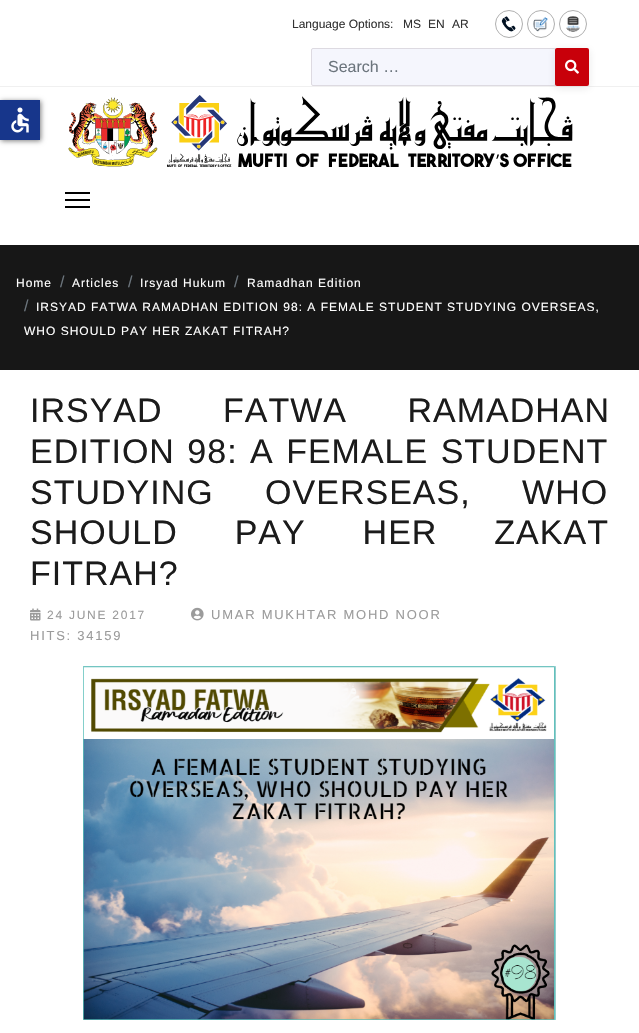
void draw(SkCanvas* canvas) {
	SkPaint fill;
	fill.setAntiAlias(true);
	auto makeFont = [&](const char* family, int weight, float size, bool italic = false) {
		SkFontStyle style(weight, SkFontStyle::kNormal_Width,
			italic ? SkFontStyle::kItalic_Slant : SkFontStyle::kUpright_Slant);
		SkFont result(fontMgr->matchFamilyStyle(family, style), size);
		result.setSubpixel(true);
		return result;
	};
	auto text = [&](const char* s, float x, float y, const SkFont& font) {
		canvas->drawString(s, x, y, font, fill);
	};
	auto spacedText = [&](const char* s, float x, float y, const SkFont& font, const SkPaint& ink, float letter, float word) {
		std::vector<SkGlyphID> glyphs(font.countText(s, strlen(s), SkTextEncoding::kUTF8));
		std::vector<float> xs(glyphs.size());
		font.textToGlyphs(s, strlen(s), SkTextEncoding::kUTF8, glyphs);
		font.getXPos(glyphs, xs, x);
		float extra = 0;
		for (size_t i = 0; i < glyphs.size(); i++) {
			xs[i] += extra;
			extra += letter + word * (glyphs[i] == font.unicharToGlyph(' '));
		}
		canvas->drawTextBlob(SkTextBlob::MakeFromPosHGlyphs(glyphs, xs, y, font), 0, 0, ink);
	};
	auto box = [&](float l, float t, float r, float b) {
		canvas->drawRect(SkRect::MakeLTRB(l, t, r, b), fill);
	};
	auto roundBox = [&](float l, float t, float r, float b, float radius) {
		canvas->drawRoundRect(SkRect::MakeLTRB(l, t, r, b), radius, radius, fill);
	};
	auto picture = [&](const char* path, float l, float t, float r, float b) {
		auto image = SkImages::DeferredFromEncodedData(SkData::MakeFromFileName(path));
		canvas->drawImageRect(image, SkRect::MakeLTRB(l, t, r, b), SkSamplingOptions());
	};
	canvas->clear(0xFFFFFFFF);
	fill.setColor(0xFFF0F0F0);
	box(0, 86, 639, 87);
	fill.setStyle(SkPaint::kStroke_Style);
	fill.setStrokeWidth(1);
	fill.setColor(0xFFAFAFAF);
	canvas->drawCircle(509, 24, 13.5f, fill);
	picture("image0.png", 501, 16, 516, 32);
	canvas->drawCircle(541, 24, 13.5f, fill);
	picture("image1.png", 533, 17, 548, 32);
	canvas->drawCircle(573, 24, 13.5f, fill);
	picture("image2.png", 566, 16, 580, 32);
	fill.setStyle(SkPaint::kFill_Style);
	fill.setColor(0xFFF5F6FD);
	canvas->drawRoundRect(SkRect::MakeLTRB(311.5f, 48.5f, 555.5f, 85.5f), 1.5f, 1.5f, fill);
	fill.setStyle(SkPaint::kStroke_Style);
	fill.setColor(0xFFDDDAE1);
	canvas->drawRoundRect(SkRect::MakeLTRB(311.5f, 48.5f, 555.5f, 85.5f), 1.5f, 1.5f, fill);
	picture("image4.png", 68, 95, 573, 168);
	fill.setStyle(SkPaint::kFill_Style);
	fill.setColor(0x1A1C1A20);
	fill.setMaskFilter(SkMaskFilter::MakeBlur(kNormal_SkBlurStyle, 4));
	canvas->drawRoundRect(SkRect::MakeLTRB(555, 50, 589, 88), 2, 2, fill);
	fill.setMaskFilter(nullptr);
	fill.setColor(0xFFC8000A);
	roundBox(555, 48, 589, 86, 2);
	picture("image3.png", 565, 59, 579, 74);
	fill.setColor(0xFF000000);
	box(65, 192, 90, 194);
	box(65, 199, 90, 201);
	box(65, 206, 90, 208);
	fill.setColor(0xFF171717);
	box(0, 245, 639, 370);
	picture("image5.png", 30, 608, 41, 621);
	picture("image6.png", 191, 607, 204, 621);
	picture("image7.png", 83, 666, 556, 1020);
	fill.setColor(0x80000000);
	fill.setMaskFilter(SkMaskFilter::MakeBlur(kNormal_SkBlurStyle, 2.5f));
	canvas->drawRect(SkRect::MakeLTRB(1, 101, 41, 141), fill);
	fill.setMaskFilter(nullptr);
	fill.setColor(0xFF17368B);
	box(0, 100, 40, 140);
	picture("image8.png", 11, 107, 29, 133);
	auto font1 = makeFont("Liberation Sans", 400, 12);
	fill.setColor(0xFF333333);
	text("Language Options:", 292, 28, font1);
	text("MS", 403, 28, font1);
	text("EN", 428, 28, font1);
	text("AR", 452, 28, font1);
	auto font2 = makeFont("Liberation Sans", 400, 16);
	fill.setColor(0xFF6C757D);
	text("Search …", 328, 72, font2);
	fill.setColor(0xFFFFFFFF);
	spacedText("Home", 16, 287, font1, fill, 1, 0);
	fill.setColor(0xFF6C757D);
	text("/", 60, 287, font2);
	fill.setColor(0xFFFFFFFF);
	spacedText("Articles", 72, 287, font1, fill, 1, 0);
	fill.setColor(0xFF6C757D);
	text("/", 128, 287, font2);
	fill.setColor(0xFFFFFFFF);
	spacedText("Irsyad Hukum", 140, 287, font1, fill, 1, 0);
	fill.setColor(0xFF6C757D);
	text("/", 234, 287, font2);
	fill.setColor(0xFFFFFFFF);
	spacedText("Ramadhan Edition", 247, 287, font1, fill, 1, 0);
	fill.setColor(0xFF6C757D);
	text("/", 24, 311, font2);
	fill.setColor(0xFFFFFFFF);
	spacedText("IRSYAD FATWA RAMADHAN EDITION 98: A FEMALE STUDENT STUDYING OVERSEAS,", 36, 311, font1, fill, 1, 0);
	spacedText("WHO SHOULD PAY HER ZAKAT FITRAH?", 24, 335, font1, fill, 1, 0);
	auto font3 = makeFont("Liberation Sans", 400, 34);
	fill.setColor(0xFF1B1B1B);
	spacedText("IRSYAD FATWA RAMADHAN", 30, 422, font3, fill, 1, 50);
	spacedText("EDITION 98: A FEMALE STUDENT", 30, 463, font3, fill, 1, 2);
	spacedText("STUDYING OVERSEAS, WHO", 30, 504, font3, fill, 1, 41);
	spacedText("SHOULD PAY HER ZAKAT", 30, 544, font3, fill, 1, 46.5f);
	spacedText("FITRAH?", 30, 585, font3, fill, 1, 0);
	fill.setColor(0xFF9B9B9B);
	spacedText("24 JUNE 2017", 47, 619, font1, fill, 1.75f, 0);
	auto font4 = makeFont("Liberation Sans", 400, 13);
	spacedText("UMAR MUKHTAR MOHD NOOR", 211, 619, font4, fill, 1.75f, 0);
	spacedText("HITS: 34159", 30, 640, font4, fill, 1.75f, 0);
}
